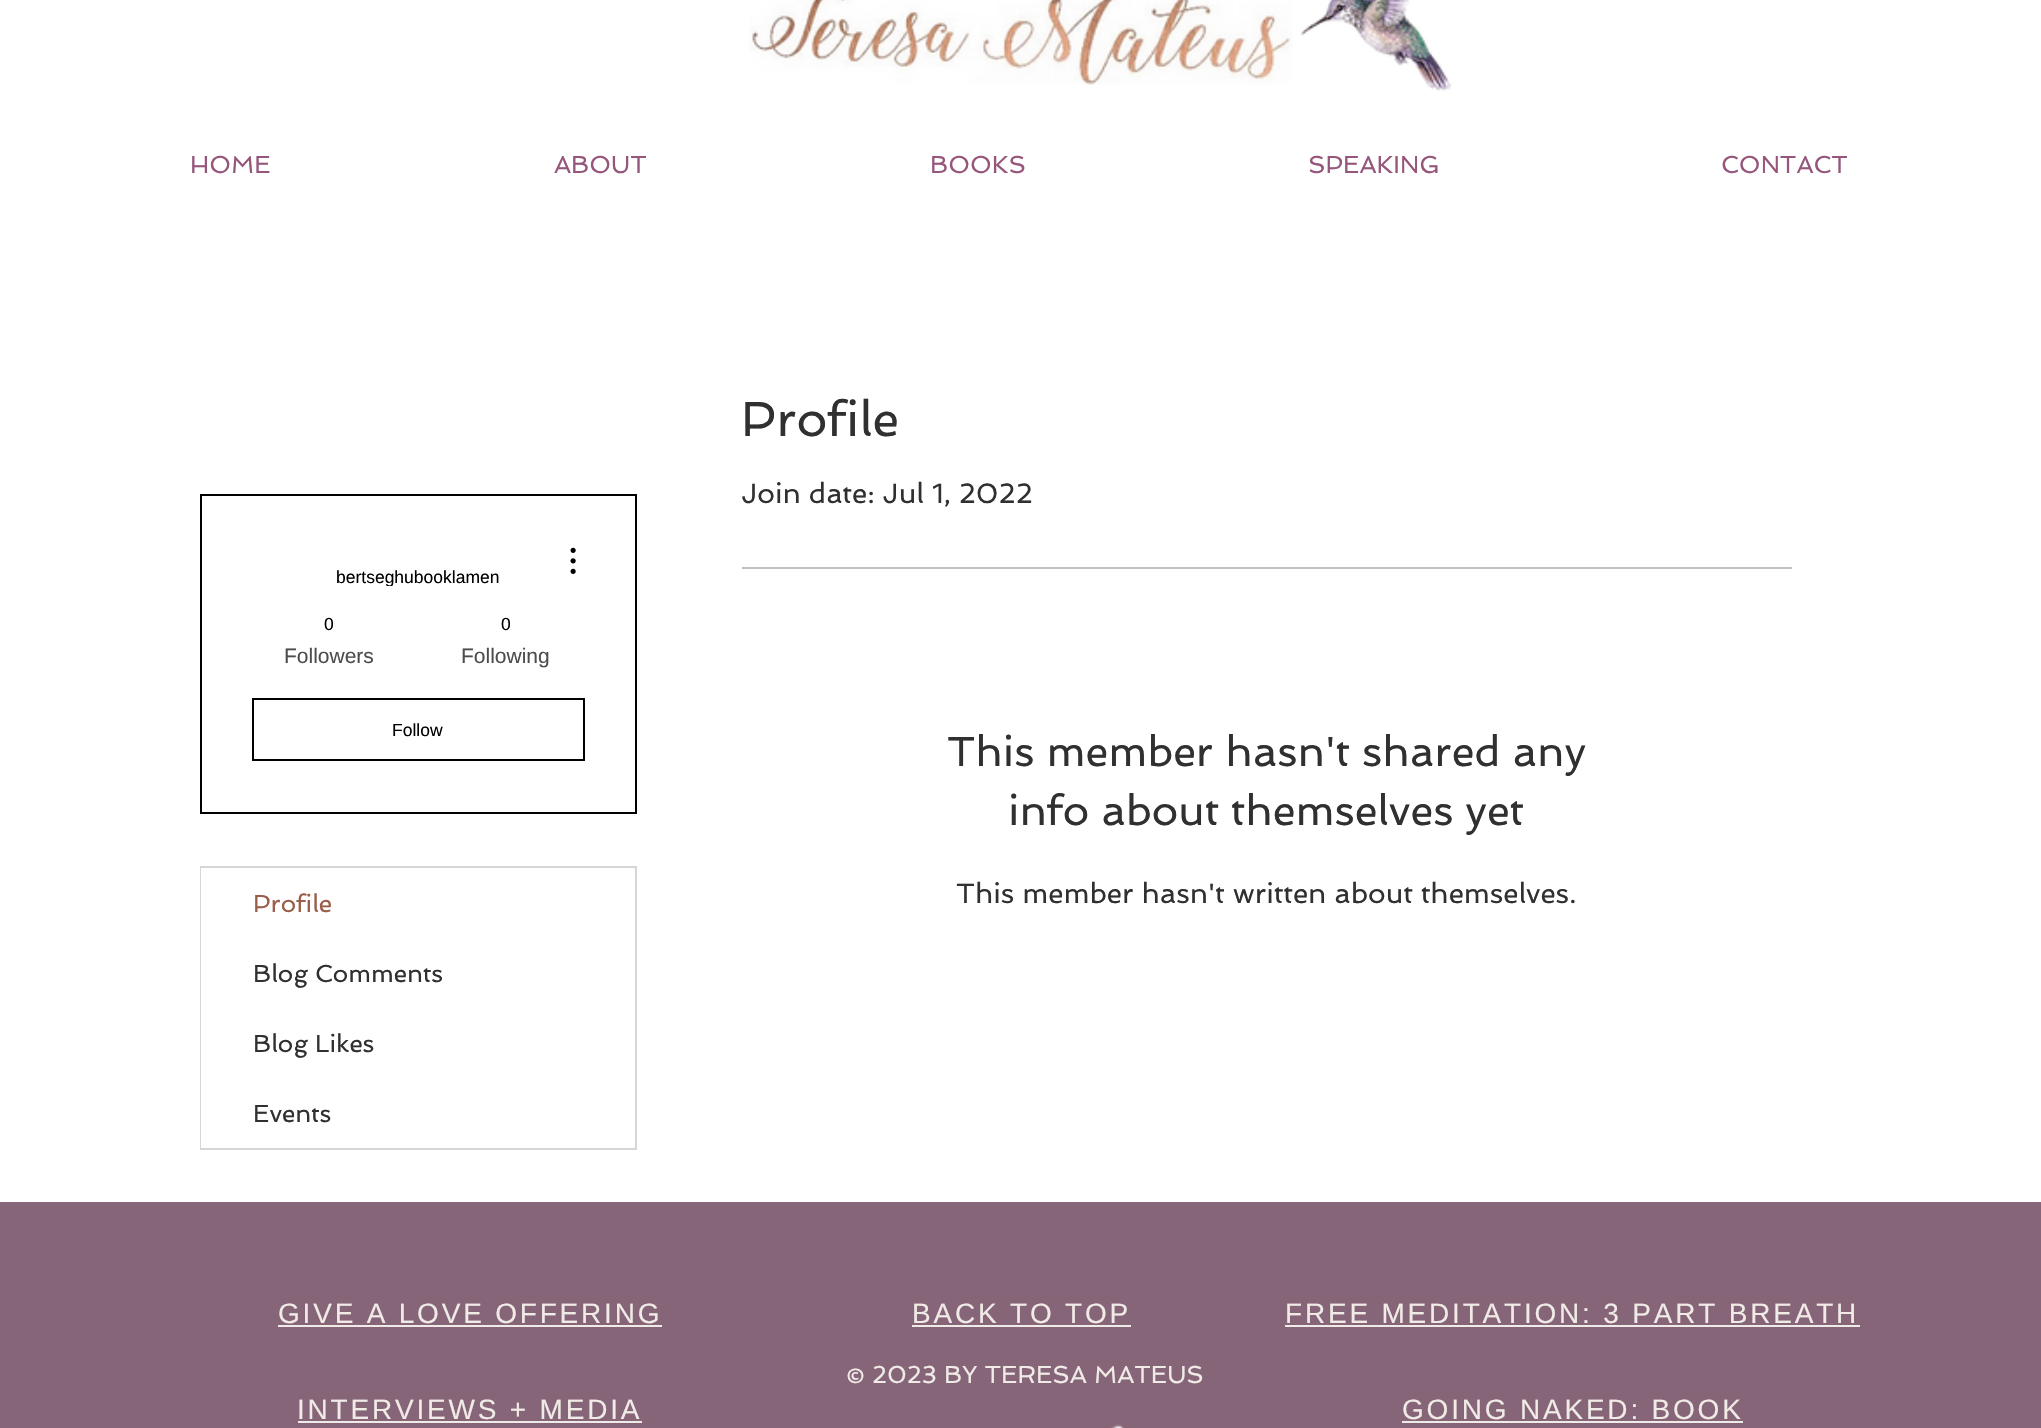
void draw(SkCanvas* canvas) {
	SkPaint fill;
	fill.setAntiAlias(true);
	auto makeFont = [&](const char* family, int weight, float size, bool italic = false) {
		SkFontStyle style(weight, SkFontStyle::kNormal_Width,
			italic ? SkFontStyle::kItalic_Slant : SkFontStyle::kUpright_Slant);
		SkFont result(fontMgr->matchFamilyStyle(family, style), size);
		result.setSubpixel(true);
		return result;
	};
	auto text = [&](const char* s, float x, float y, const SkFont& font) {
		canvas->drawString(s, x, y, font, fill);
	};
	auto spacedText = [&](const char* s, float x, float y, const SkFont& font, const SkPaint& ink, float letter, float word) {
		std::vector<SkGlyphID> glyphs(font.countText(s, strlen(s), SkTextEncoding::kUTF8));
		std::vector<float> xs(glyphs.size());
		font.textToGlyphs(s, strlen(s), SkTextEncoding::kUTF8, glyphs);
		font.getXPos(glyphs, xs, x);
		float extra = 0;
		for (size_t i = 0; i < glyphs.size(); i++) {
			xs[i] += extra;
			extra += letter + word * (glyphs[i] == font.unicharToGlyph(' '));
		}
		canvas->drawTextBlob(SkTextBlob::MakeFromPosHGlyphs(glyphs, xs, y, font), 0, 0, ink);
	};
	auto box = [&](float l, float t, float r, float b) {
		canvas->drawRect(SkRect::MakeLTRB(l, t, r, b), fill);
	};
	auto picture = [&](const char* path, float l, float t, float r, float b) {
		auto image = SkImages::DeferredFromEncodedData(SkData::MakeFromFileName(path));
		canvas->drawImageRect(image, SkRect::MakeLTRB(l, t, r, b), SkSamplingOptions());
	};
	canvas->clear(0xFFFFFFFF);
	picture("image0.png", 749, 0, 1293, 85);
	picture("image1.png", 1300, 0, 1452, 92);
	fill.setStyle(SkPaint::kStroke_Style);
	fill.setStrokeWidth(2);
	fill.setColor(0xFF000000);
	canvas->drawRect(SkRect::MakeLTRB(201, 495, 636, 813), fill);
	picture("image2.png", 570, 547, 576, 574);
	canvas->drawRect(SkRect::MakeLTRB(253, 699, 584, 760), fill);
	fill.setColor(0xFFD6D6D6);
	canvas->drawRect(SkRect::MakeLTRB(201, 867, 636, 1149), fill);
	fill.setStyle(SkPaint::kFill_Style);
	fill.setColor(0xFFFFFFFF);
	box(201, 868, 202, 1148);
	fill.setColor(0xFFC1C1C1);
	box(742, 567, 1792, 569);
	fill.setColor(0xFF876579);
	box(0, 1202, 2041, 1428);
	fill.setColor(0xFFF0EBE6);
	box(278, 1325, 662, 1327);
	box(912, 1325, 1131, 1327);
	box(1285, 1325, 1860, 1327);
	box(298, 1421, 642, 1423);
	box(1402, 1421, 1743, 1423);
	picture("image3.png", 1110, 1424, 1124, 1428);
	auto font1 = makeFont("Spinnaker", 400, 24.5f);
	fill.setColor(0xFF96567B);
	text("HOME", 190, 173, font1);
	text("ABOUT", 554, 173, font1);
	text("BOOKS", 930, 173, font1);
	text("SPEAKING", 1308, 173, font1);
	text("CONTACT", 1721, 173, font1);
	canvas->save();
	canvas->clipRect(SkRect::MakeLTRB(252, 567, 585, 586));
	auto font2 = makeFont("Liberation Sans", 400, 17.5f);
	fill.setColor(0xFF000000);
	text("bertseghubooklamen", 336, 583, font2);
	canvas->restore();
	text("0", 324, 630, font2);
	auto font3 = makeFont("Liberation Sans", 400, 21);
	fill.setColor(0xFF4D4D4D);
	text("Followers", 284, 663, font3);
	fill.setColor(0xFF000000);
	text("0", 501, 630, font2);
	fill.setColor(0xFF4D4D4D);
	text("Following", 461, 663, font3);
	fill.setColor(0xFF000000);
	text("Follow", 392, 736, font2);
	fill.setColor(0xFF9A5E4A);
	text("Profile", 253, 912, font1);
	fill.setColor(0xFF303030);
	text("Blog Comments", 253, 982, font1);
	text("Blog Likes", 253, 1052, font1);
	text("Events", 253, 1122, font1);
	auto font4 = makeFont("Spinnaker", 400, 49);
	text("Profile", 741, 436, font4);
	auto font5 = makeFont("Spinnaker", 400, 28);
	text("Join date: Jul 1, 2022", 741, 503, font5);
	auto font6 = makeFont("Spinnaker", 400, 42);
	text("This member hasn't shared any", 947, 766, font6);
	text("info about themselves yet", 1008, 825, font6);
	text("This member hasn't written about themselves.", 956, 903, font5);
	auto font7 = makeFont("Liberation Sans", 400, 28);
	fill.setColor(0xFFF0EBE6);
	spacedText("GIVE A LOVE OFFERING", 278, 1323, font7, fill, 2.8f, 0);
	spacedText("BACK TO TOP", 912, 1323, font7, fill, 2.8f, 0);
	spacedText("FREE MEDITATION: 3 PART BREATH", 1285, 1323, font7, fill, 2.8f, 0);
	text("© 2023 BY TERESA MATEUS", 846, 1383, font1);
	spacedText("INTERVIEWS + MEDIA", 297, 1419, font7, fill, 2.8f, 0);
	spacedText("GOING NAKED: BOOK", 1402, 1419, font7, fill, 2.8f, 0);
}
